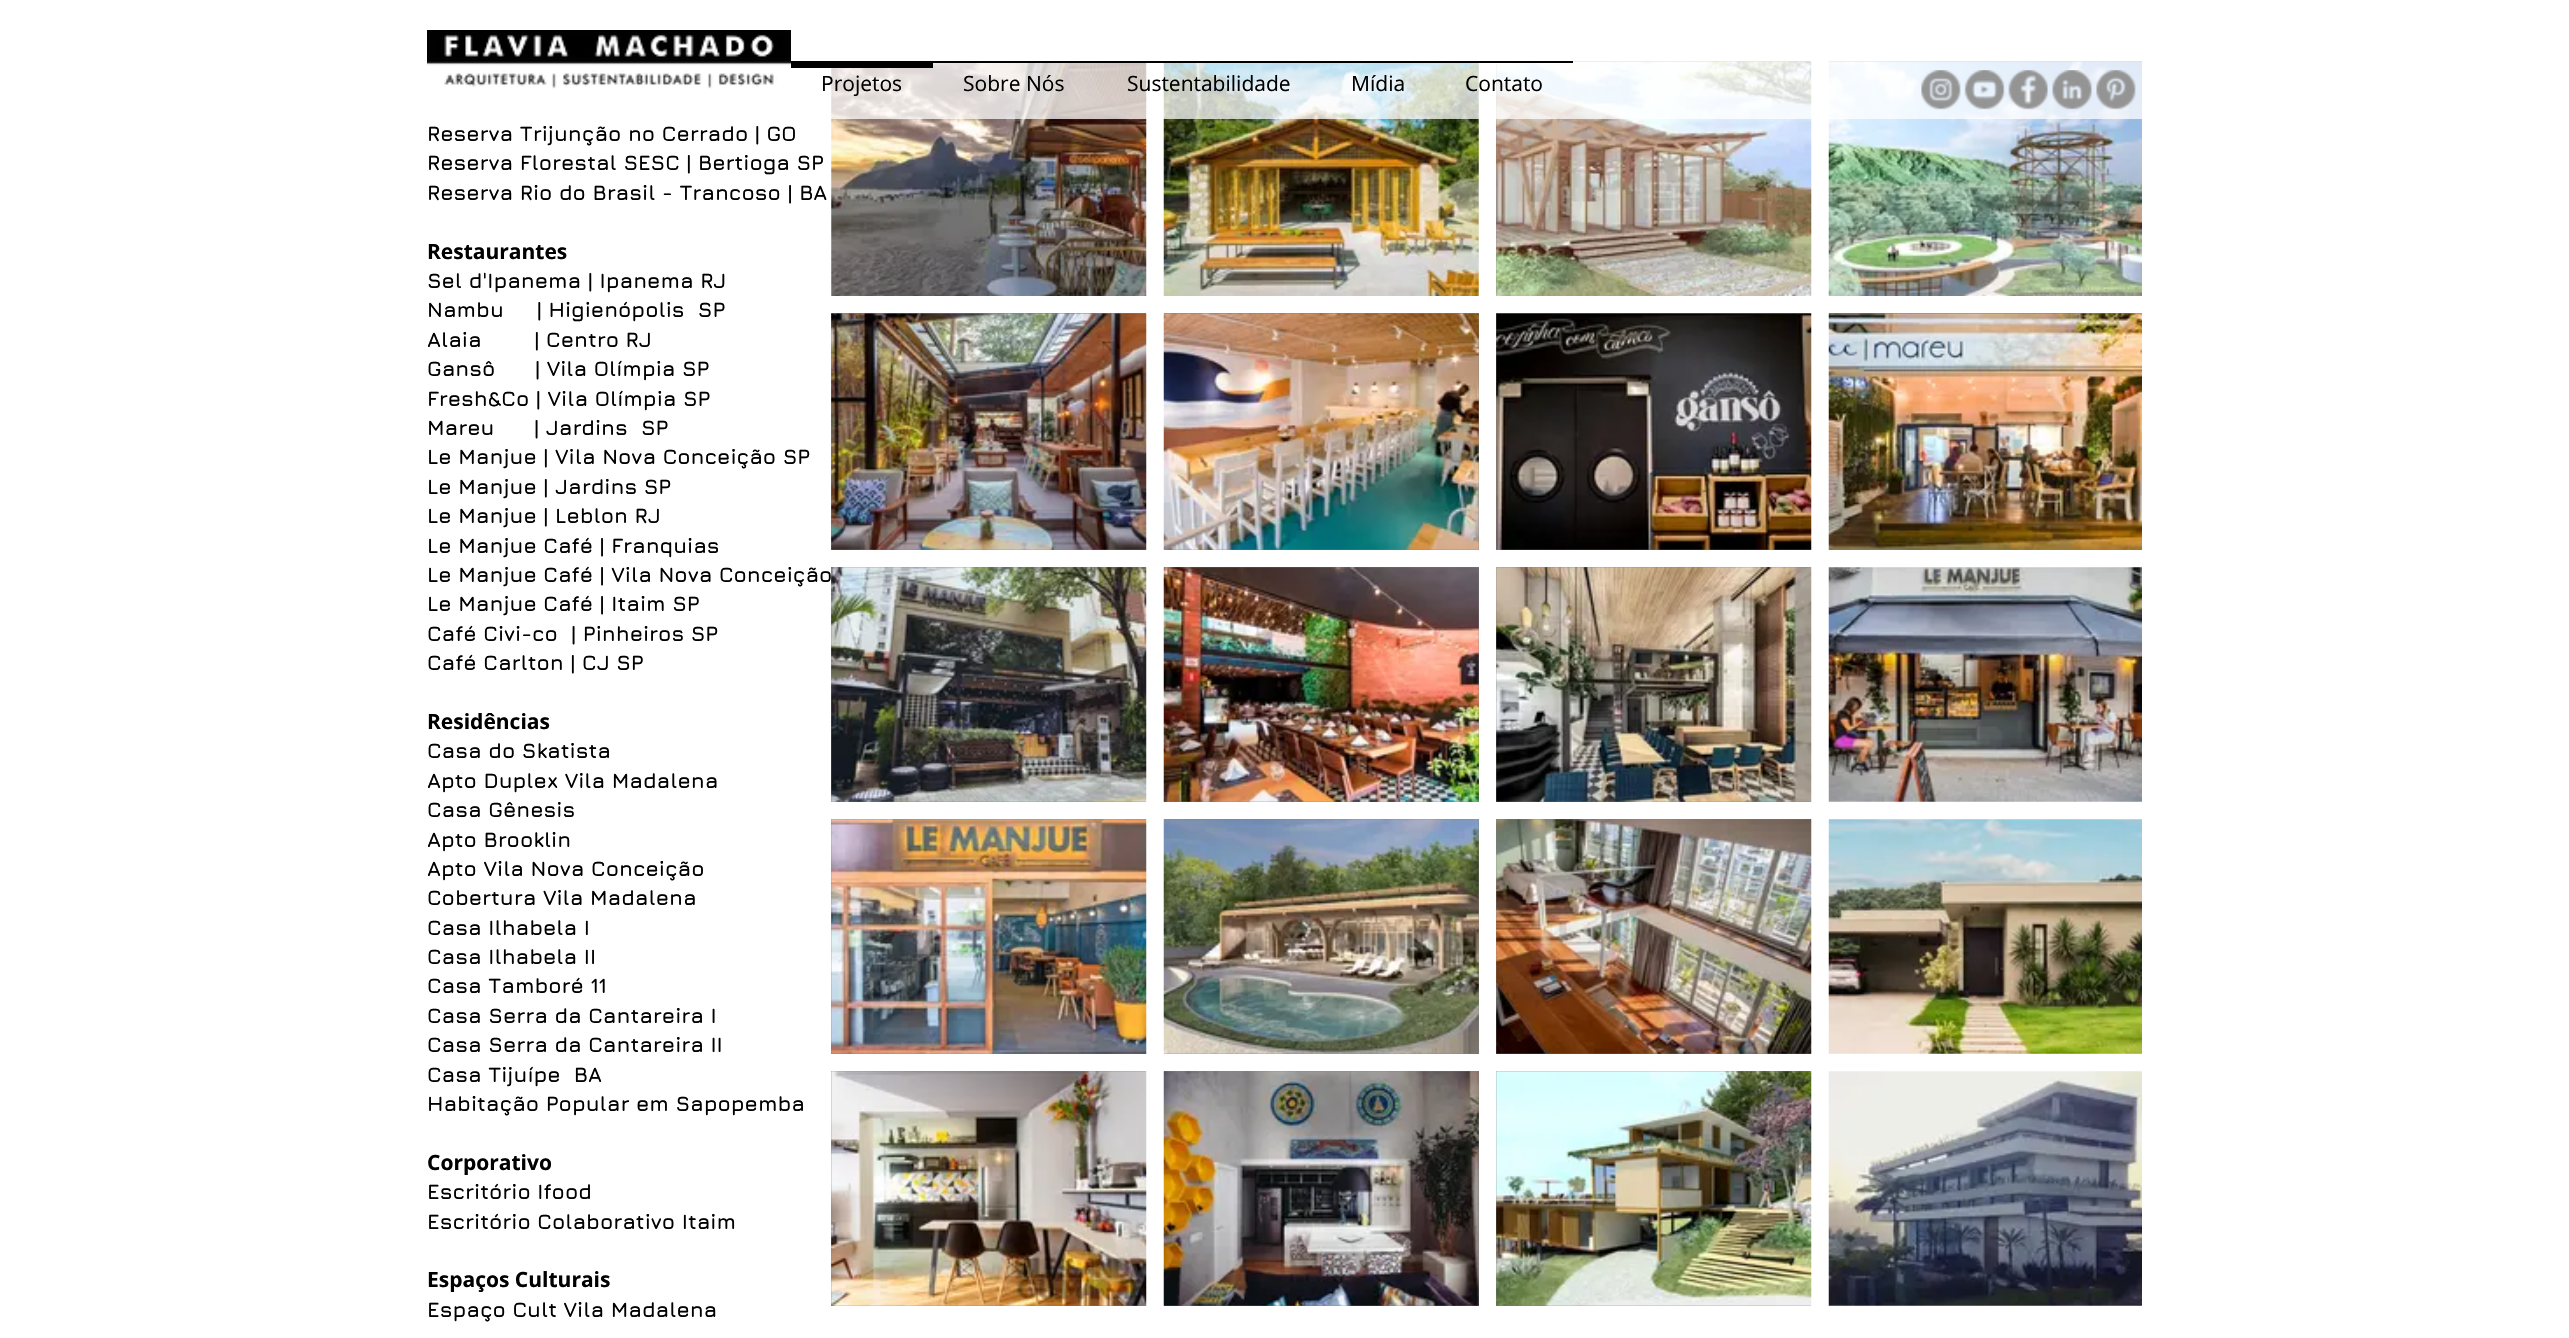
void draw(SkCanvas* canvas) {
	SkPaint fill;
	fill.setAntiAlias(true);
	auto makeFont = [&](const char* family, int weight, float size, bool italic = false) {
		SkFontStyle style(weight, SkFontStyle::kNormal_Width,
			italic ? SkFontStyle::kItalic_Slant : SkFontStyle::kUpright_Slant);
		SkFont result(fontMgr->matchFamilyStyle(family, style), size);
		result.setSubpixel(true);
		return result;
	};
	auto text = [&](const char* s, float x, float y, const SkFont& font) {
		canvas->drawString(s, x, y, font, fill);
	};
	auto box = [&](float l, float t, float r, float b) {
		canvas->drawRect(SkRect::MakeLTRB(l, t, r, b), fill);
	};
	auto picture = [&](const char* path, float l, float t, float r, float b) {
		auto image = SkImages::DeferredFromEncodedData(SkData::MakeFromFileName(path));
		canvas->drawImageRect(image, SkRect::MakeLTRB(l, t, r, b), SkSamplingOptions());
	};
	canvas->clear(0xFFFFFFFF);
	picture("image6.png", 831, 63, 1147, 296);
	picture("image7.png", 1163, 63, 1479, 296);
	fill.setColor(0xFF808080);
	box(1496, 61, 1811, 296);
	picture("image8.png", 1496, 61, 1812, 296);
	box(1829, 61, 2142, 62);
	picture("image9.png", 1828, 61, 2142, 296);
	fill.setColor(0xBDFFFFFF);
	box(831, 61, 2142, 119);
	picture("image0.png", 427, 30, 791, 89);
	fill.setColor(0xFF000000);
	box(791, 61, 933, 68);
	box(933, 61, 1573, 63);
	picture("image1.png", 1921, 70, 1961, 110);
	picture("image2.png", 1964, 70, 2005, 110);
	picture("image3.png", 2008, 70, 2048, 110);
	picture("image4.png", 2052, 70, 2092, 110);
	picture("image5.png", 2096, 70, 2136, 110);
	fill.setColor(0xFF808080);
	box(831, 313, 1146, 550);
	picture("image10.png", 831, 313, 1147, 550);
	box(1164, 313, 1479, 550);
	picture("image11.png", 1163, 313, 1479, 550);
	box(1496, 313, 1811, 550);
	picture("image12.png", 1496, 313, 1812, 550);
	box(1829, 313, 2142, 550);
	picture("image13.png", 1828, 313, 2142, 550);
	box(831, 567, 1146, 802);
	picture("image14.png", 831, 567, 1147, 802);
	box(1164, 567, 1479, 802);
	picture("image15.png", 1163, 567, 1479, 802);
	box(1496, 567, 1811, 802);
	picture("image16.png", 1496, 567, 1812, 802);
	picture("image17.png", 1828, 567, 2142, 802);
	box(831, 819, 1146, 1054);
	picture("image18.png", 831, 819, 1147, 1054);
	box(1164, 819, 1479, 1054);
	picture("image19.png", 1163, 819, 1479, 1054);
	box(1496, 819, 1811, 1054);
	picture("image20.png", 1496, 819, 1812, 1054);
	picture("image21.png", 1828, 819, 2142, 1054);
	box(831, 1071, 1146, 1306);
	picture("image22.png", 831, 1071, 1147, 1306);
	box(1164, 1071, 1479, 1306);
	picture("image23.png", 1163, 1071, 1479, 1306);
	box(1496, 1071, 1811, 1306);
	picture("image24.png", 1496, 1071, 1812, 1306);
	picture("image25.png", 1828, 1071, 2142, 1306);
	auto font1 = makeFont("Open Sans", 400, 21);
	fill.setColor(0xFF000000);
	text("Projetos", 821, 91, font1);
	text("Sobre Nós", 963, 91, font1);
	text("Sustentabilidade", 1127, 91, font1);
	text("Mídia", 1351, 91, font1);
	text("Contato", 1465, 91, font1);
	auto font2 = makeFont("Jura", 700, 21);
	text("Reserva Trijunção no Cerrado | GO", 427, 141, font2);
	text("Reserva Florestal SESC | Bertioga SP", 427, 170, font2);
	text("Reserva Rio do Brasil - Trancoso | BA", 427, 200, font2);
	auto font3 = makeFont("Open Sans", 700, 21);
	text("Restaurantes", 427, 259, font3);
	text("Sel d'Ipanema | Ipanema RJ", 427, 288, font2);
	text("Nambu     | Higienópolis  SP", 427, 317, font2);
	text("Alaia        | Centro RJ", 427, 347, font2);
	text("Gansô      | Vila Olímpia SP", 427, 376, font2);
	text("Fresh&Co | Vila Olímpia SP", 427, 406, font2);
	text("Mareu      | Jardins  SP", 427, 435, font2);
	text("Le Manjue | Vila Nova Conceição SP", 427, 464, font2);
	text("Le Manjue | Jardins SP", 427, 494, font2);
	text("Le Manjue | Leblon RJ", 427, 523, font2);
	text("Le Manjue Café | Franquias", 427, 553, font2);
	text("Le Manjue Café | Vila Nova Conceição", 427, 582, font2);
	text("Le Manjue Café | Itaim SP", 427, 611, font2);
	text("Café Civi-co  | Pinheiros SP", 427, 641, font2);
	text("Café Carlton | CJ SP", 427, 670, font2);
	text("Residências", 427, 729, font3);
	text("Casa do Skatista", 427, 758, font2);
	text("Apto Duplex Vila Madalena", 427, 788, font2);
	text("Casa Gênesis", 427, 817, font2);
	text("Apto Brooklin", 427, 847, font2);
	text("Apto Vila Nova Conceição", 427, 876, font2);
	text("Cobertura Vila Madalena", 427, 905, font2);
	text("Casa Ilhabela I", 427, 935, font2);
	text("Casa Ilhabela II", 427, 964, font2);
	text("Casa Tamboré 11", 427, 993, font2);
	text("Casa Serra da Cantareira I", 427, 1023, font2);
	text("Casa Serra da Cantareira II", 427, 1052, font2);
	text("Casa Tijuípe  BA", 427, 1082, font2);
	text("Habitação Popular em Sapopemba", 427, 1111, font2);
	text("Corporativo", 427, 1170, font3);
	text("Escritório Ifood", 427, 1199, font2);
	text("Escritório Colaborativo Itaim", 427, 1229, font2);
	text("Espaços Culturais", 427, 1287, font3);
	text("Espaço Cult Vila Madalena", 427, 1317, font2);
}
